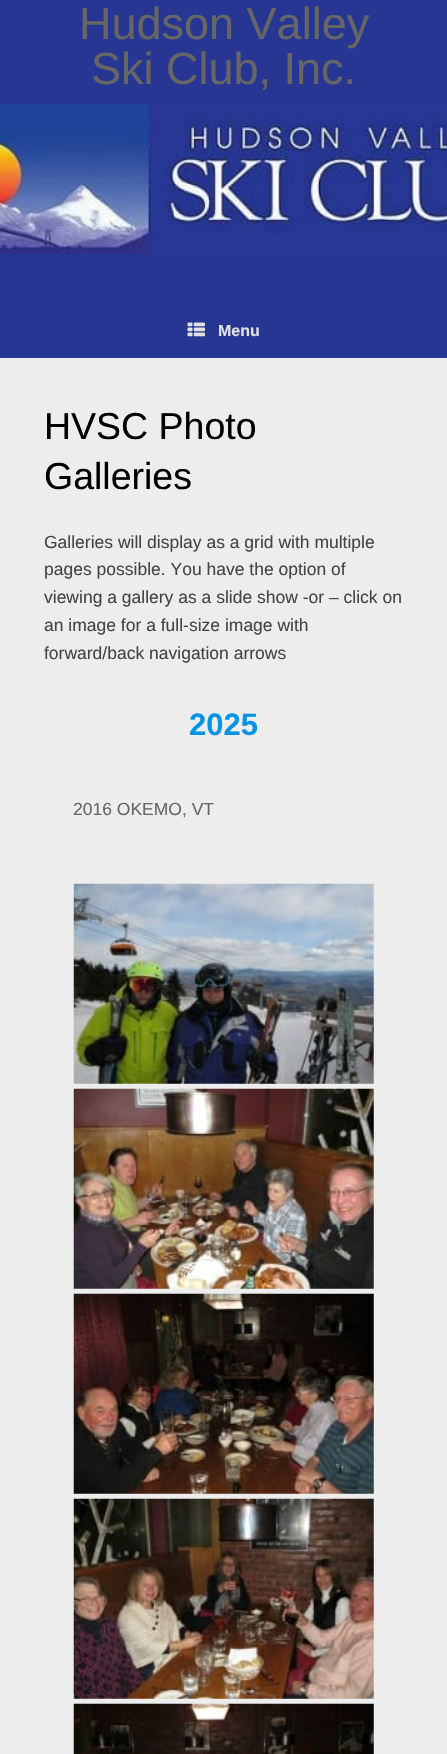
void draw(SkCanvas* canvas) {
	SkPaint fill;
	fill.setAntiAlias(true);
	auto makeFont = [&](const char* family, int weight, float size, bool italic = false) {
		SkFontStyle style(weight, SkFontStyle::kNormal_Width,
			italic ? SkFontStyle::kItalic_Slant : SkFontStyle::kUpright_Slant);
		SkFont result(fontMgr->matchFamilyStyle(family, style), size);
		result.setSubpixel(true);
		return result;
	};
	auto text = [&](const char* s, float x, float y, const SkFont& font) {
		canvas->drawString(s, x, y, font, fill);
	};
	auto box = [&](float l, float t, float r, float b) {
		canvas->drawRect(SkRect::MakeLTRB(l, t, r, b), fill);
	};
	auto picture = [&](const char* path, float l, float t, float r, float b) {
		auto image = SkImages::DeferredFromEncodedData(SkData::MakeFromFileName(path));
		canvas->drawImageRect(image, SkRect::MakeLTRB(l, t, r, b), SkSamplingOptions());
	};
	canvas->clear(0xFF273693);
	picture("image0.png", 0, 104, 447, 254);
	picture("image1.png", 187, 322, 205, 337);
	fill.setColor(0xFFEDEDED);
	box(0, 358, 447, 1754);
	picture("image2.png", 73, 883, 374, 1084);
	picture("image3.png", 73, 1088, 374, 1289);
	picture("image4.png", 73, 1293, 374, 1494);
	picture("image5.png", 73, 1498, 374, 1699);
	picture("image6.png", 73, 1703, 374, 1754);
	auto font1 = makeFont("Liberation Sans", 400, 45);
	fill.setColor(0xFF666666);
	text("Hudson Valley", 79, 39, font1);
	text("Ski Club, Inc.", 91, 84, font1);
	auto font2 = makeFont("Liberation Sans", 700, 16);
	fill.setColor(0xFFE2E2E2);
	text("Menu", 218, 336, font2);
	auto font3 = makeFont("Liberation Sans", 400, 37.5f);
	fill.setColor(0xFF000000);
	text("HVSC Photo", 44, 439, font3);
	text("Galleries", 44, 489, font3);
	auto font4 = makeFont("Liberation Sans", 400, 17.5f);
	fill.setColor(0xFF444444);
	text("Galleries will display as a grid with multiple", 44, 548, font4);
	text("pages possible. You have the option of", 44, 575, font4);
	text("viewing a gallery as a slide show -or – click on", 44, 603, font4);
	text("an image for a full-size image with", 44, 631, font4);
	text("forward/back navigation arrows", 44, 659, font4);
	auto font5 = makeFont("Liberation Sans", 700, 31);
	fill.setColor(0xFF0693E3);
	text("2025", 189, 735, font5);
	fill.setColor(0xFF666666);
	text("2016 OKEMO, VT", 73, 815, font4);
}
